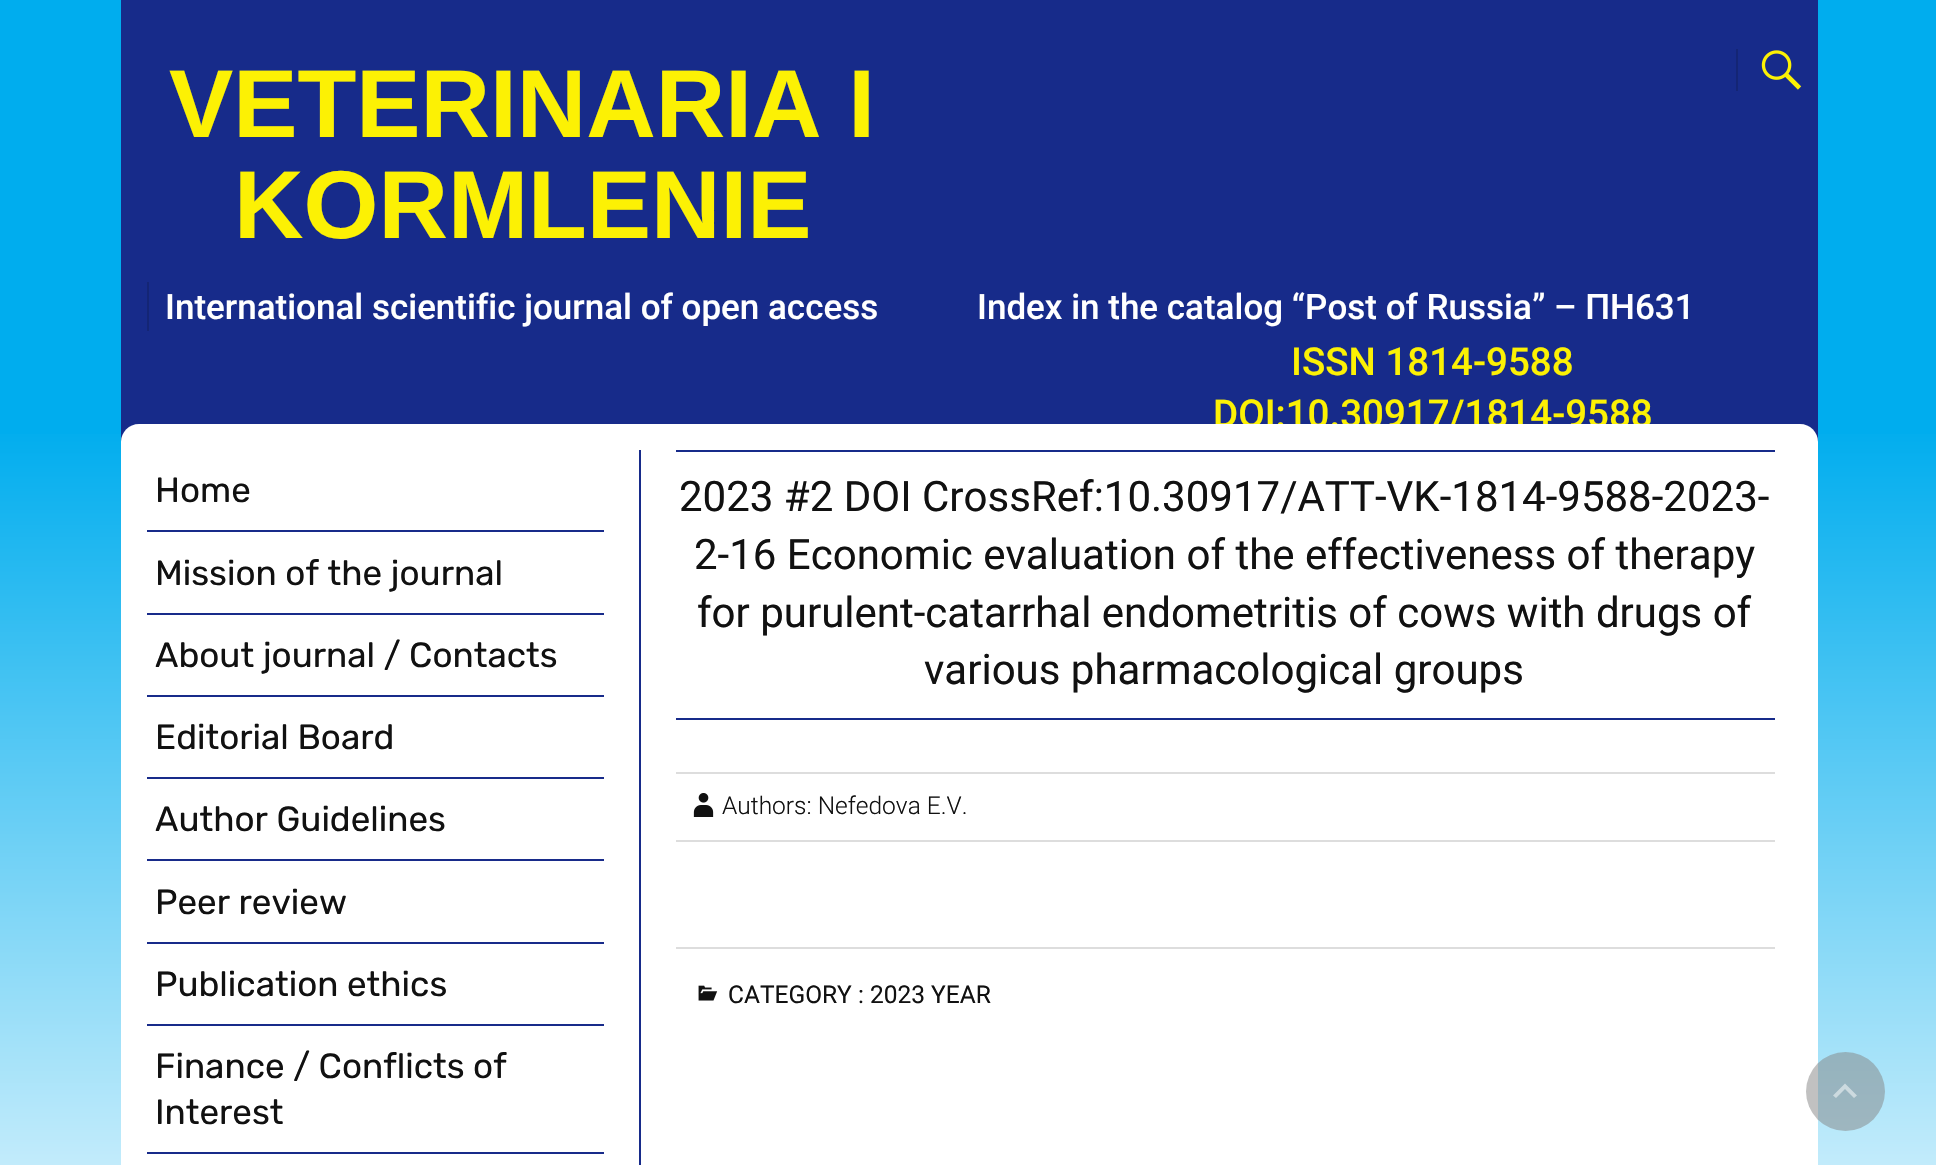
void draw(SkCanvas* canvas) {
	SkPaint fill;
	fill.setAntiAlias(true);
	auto makeFont = [&](const char* family, int weight, float size, bool italic = false) {
		SkFontStyle style(weight, SkFontStyle::kNormal_Width,
			italic ? SkFontStyle::kItalic_Slant : SkFontStyle::kUpright_Slant);
		SkFont result(fontMgr->matchFamilyStyle(family, style), size);
		result.setSubpixel(true);
		return result;
	};
	auto text = [&](const char* s, float x, float y, const SkFont& font) {
		canvas->drawString(s, x, y, font, fill);
	};
	auto box = [&](float l, float t, float r, float b) {
		canvas->drawRect(SkRect::MakeLTRB(l, t, r, b), fill);
	};
	auto picture = [&](const char* path, float l, float t, float r, float b) {
		auto image = SkImages::DeferredFromEncodedData(SkData::MakeFromFileName(path));
		canvas->drawImageRect(image, SkRect::MakeLTRB(l, t, r, b), SkSamplingOptions());
	};
	canvas->clear(0xFF00ADEE);
	{
		const SkColor colors[] = {0xFFFFFFFF, 0xFFFFFFFF, 0xFF00ADEE};
		const float stops[] = {0, 0.5f, 1};
		const SkPoint ends[] = {{969, 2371}, {969, 424}};
		fill.setShader(SkGradientShader::MakeLinear(ends, colors, stops, 3, SkTileMode::kClamp));
		fill.setAlpha(255);
	}
	box(0, 434, 1936, 1165);
	fill.setShader(nullptr);
	fill.setColor(0xFF172B8A);
	box(121, 0, 1818, 441);
	fill.setColor(0xFF142575);
	box(147, 282, 149, 331);
	box(1736, 49, 1738, 91);
	picture("image0.png", 1761, 50, 1802, 90);
	auto font1 = makeFont("Liberation Sans", 700, 96.25f);
	fill.setColor(0xFFFCF104);
	text("VETERINARIA I", 169, 137, font1);
	text("KORMLENIE", 234, 238, font1);
	auto font2 = makeFont("Roboto", 500, 35);
	fill.setColor(0xFFFFFFFF);
	text("International scientific journal of open access", 165, 319, font2);
	text("Index in the catalog “Post of Russia” – ПН631", 977, 319, font2);
	auto font3 = makeFont("Roboto", 500, 38.5f);
	fill.setColor(0xFFFCF104);
	text("ISSN 1814-9588", 1291, 375, font3);
	text("DOI:10.30917/1814-9588", 1213, 427, font3);
	fill.setColor(0xFFFFFFFF);
	canvas->drawPath(SkPathBuilder().moveTo(139, 424).lineTo(1800, 424).cubicTo(1810, 424, 1818, 432, 1818, 442).lineTo(1818, 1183).lineTo(121, 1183).lineTo(121, 442).cubicTo(121, 432, 129, 424, 139, 424).close().detach(), fill);
	fill.setColor(0xFF172B8A);
	box(639, 450, 641, 1165);
	fill.setColor(0xFF182B8A);
	box(147, 530, 604, 532);
	auto font4 = makeFont("Rubik", 300, 35);
	fill.setColor(0xFF111111);
	text("Home", 155, 502, font4);
	fill.setColor(0xFF182B8A);
	box(147, 613, 604, 615);
	fill.setColor(0xFF111111);
	text("Mission of the journal", 155, 585, font4);
	fill.setColor(0xFF182B8A);
	box(147, 695, 604, 697);
	fill.setColor(0xFF111111);
	text("About journal / Contacts", 155, 667, font4);
	fill.setColor(0xFF182B8A);
	box(147, 777, 604, 779);
	fill.setColor(0xFF111111);
	text("Editorial Board", 155, 749, font4);
	fill.setColor(0xFF182B8A);
	box(147, 859, 604, 861);
	fill.setColor(0xFF111111);
	text("Author Guidelines", 155, 831, font4);
	fill.setColor(0xFF182B8A);
	box(147, 942, 604, 944);
	fill.setColor(0xFF111111);
	text("Peer review", 155, 914, font4);
	fill.setColor(0xFF182B8A);
	box(147, 1024, 604, 1026);
	fill.setColor(0xFF111111);
	text("Publication ethics", 155, 996, font4);
	fill.setColor(0xFF182B8A);
	box(147, 1152, 604, 1154);
	fill.setColor(0xFF111111);
	text("Finance / Conflicts of", 155, 1078, font4);
	text("Interest", 155, 1124, font4);
	fill.setColor(0xFF172B8A);
	box(676, 450, 1775, 452);
	box(676, 718, 1775, 720);
	auto font5 = makeFont("Roboto", 400, 42);
	fill.setColor(0xFF111111);
	text("2023 #2 DOI CrossRef:10.30917/ATT-VK-1814-9588-2023-", 679, 511, font5);
	text("2-16 Economic evaluation of the effectiveness of therapy", 694, 569, font5);
	text("for purulent-catarrhal endometritis of cows with drugs of", 697, 627, font5);
	text("various pharmacological groups", 924, 684, font5);
	fill.setColor(0xFFDDDDDD);
	box(676, 772, 1775, 774);
	box(676, 840, 1775, 842);
	picture("image1.png", 693, 793, 714, 817);
	auto font6 = makeFont("Roboto", 300, 24.5f);
	fill.setColor(0xFF111111);
	text("Authors: Nefedova E.V.", 722, 814, font6);
	fill.setColor(0xFFDDDDDD);
	box(676, 947, 1775, 949);
	picture("image2.png", 698, 985, 718, 1001);
	auto font7 = makeFont("Roboto", 400, 24.5f);
	fill.setColor(0xFF111111);
	text("CATEGORY : 2023 YEAR", 728, 1003, font7);
	fill.setColor(0x80848484);
	canvas->drawCircle(1845.5f, 1091.5f, 39.5f, fill);
	fill.setColor(0xFFCCDADF);
	canvas->drawPath(SkPathBuilder().moveTo(1854, 1098).lineTo(1845, 1089).lineTo(1836, 1098).lineTo(1833, 1095.5f).lineTo(1845, 1083.5f).lineTo(1857, 1095.5f).close().detach(), fill);
}
